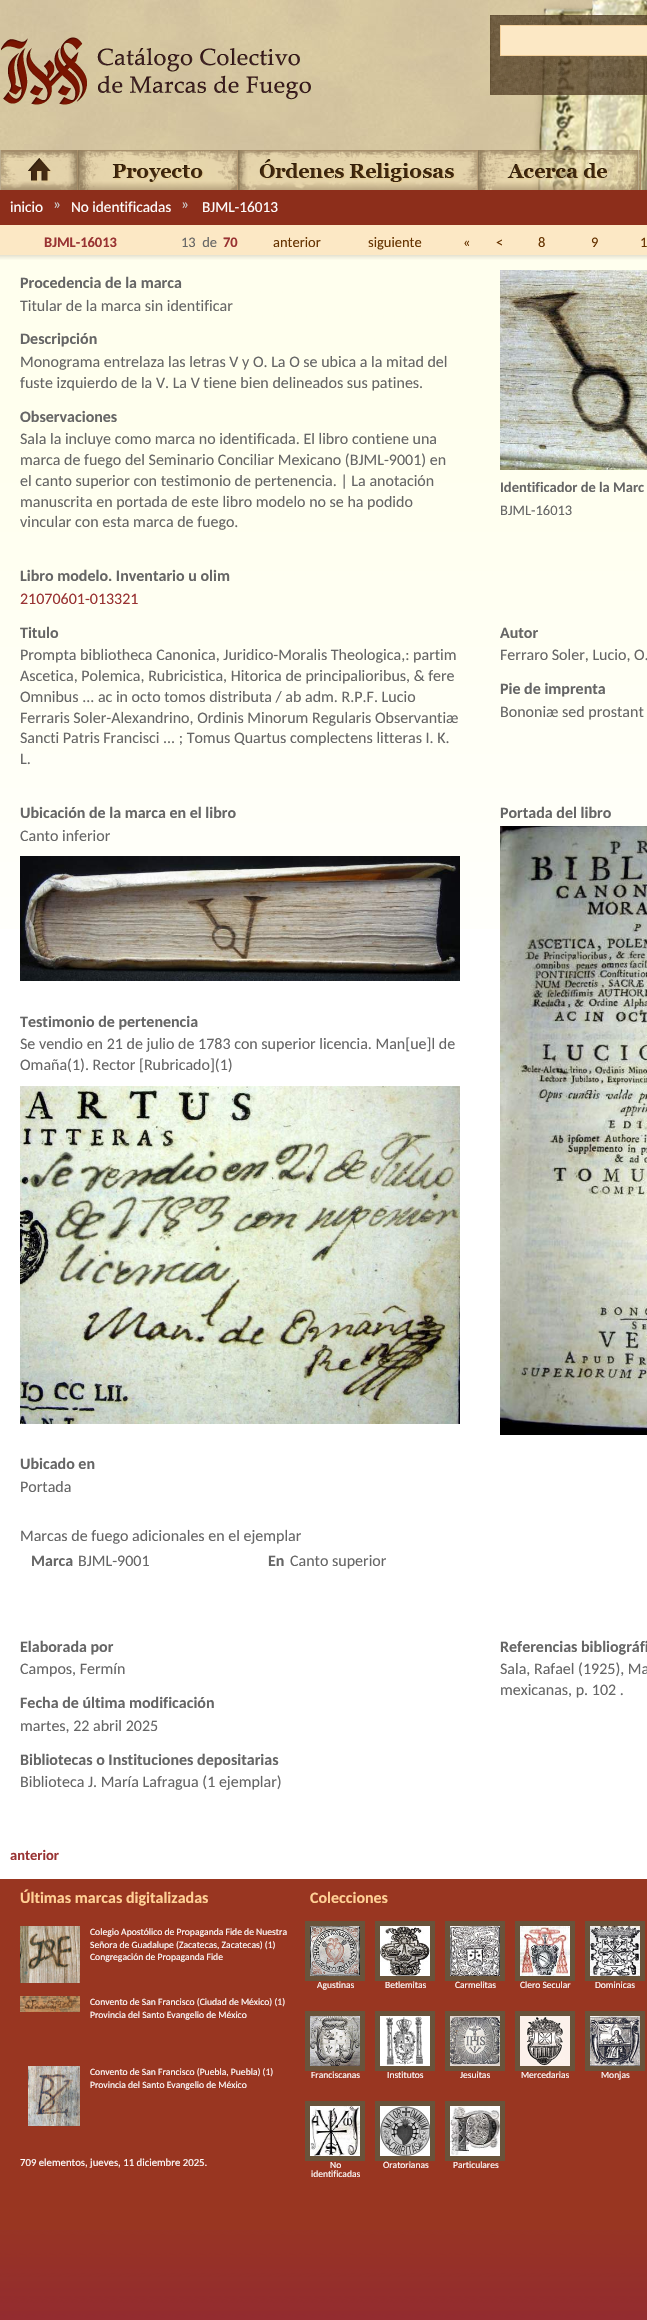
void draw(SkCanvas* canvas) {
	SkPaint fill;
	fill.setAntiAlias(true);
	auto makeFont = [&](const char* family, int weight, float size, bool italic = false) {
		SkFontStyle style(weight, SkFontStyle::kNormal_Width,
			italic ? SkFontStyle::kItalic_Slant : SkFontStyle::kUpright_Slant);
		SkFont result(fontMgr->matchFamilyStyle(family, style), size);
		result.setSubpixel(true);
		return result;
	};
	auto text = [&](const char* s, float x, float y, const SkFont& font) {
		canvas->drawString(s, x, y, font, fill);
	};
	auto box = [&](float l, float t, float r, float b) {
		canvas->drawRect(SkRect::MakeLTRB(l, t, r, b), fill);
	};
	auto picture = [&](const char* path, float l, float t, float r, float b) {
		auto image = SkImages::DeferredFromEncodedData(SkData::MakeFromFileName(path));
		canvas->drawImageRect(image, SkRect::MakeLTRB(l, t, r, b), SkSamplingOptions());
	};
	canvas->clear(0xFFFFFFFF);
	picture("image0.png", 0, 0, 647, 190);
	picture("image1.png", 532, 0, 647, 190);
	picture("image2.png", 1, 37, 312, 106);
	picture("image3.png", 490, 15, 647, 95);
	fill.setColor(0xFFFCE8C5);
	canvas->drawRect(SkRect::MakeLTRB(500.5f, 25.5f, 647.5f, 55.5f), fill);
	fill.setStyle(SkPaint::kStroke_Style);
	fill.setStrokeWidth(1);
	fill.setColor(0xFFF4D19C);
	canvas->drawRect(SkRect::MakeLTRB(500.5f, 25.5f, 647.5f, 55.5f), fill);
	picture("image4.png", 0, 150, 80, 190);
	picture("image5.png", 80, 150, 240, 190);
	picture("image6.png", 240, 150, 480, 190);
	picture("image7.png", 480, 150, 640, 190);
	fill.setStyle(SkPaint::kFill_Style);
	fill.setColor(0xFFAF926C);
	box(640, 150, 641, 190);
	fill.setColor(0xFF8D2E1B);
	box(0, 190, 647, 225);
	fill.setColor(0xFFFCE8C5);
	box(0, 225, 647, 255);
	picture("image8.png", 0, 255, 647, 929);
	picture("image9.png", 500, 270, 647, 470);
	picture("image10.png", 20, 856, 460, 981);
	picture("image11.png", 20, 1086, 460, 1424);
	picture("image12.png", 500, 826, 647, 1435);
	fill.setColor(0xFF993621);
	box(0, 1879, 647, 2320);
	picture("image13.png", 0, 2230, 647, 2320);
	picture("image14.png", 20, 1926, 80, 1983);
	picture("image15.png", 20, 1996, 80, 2012);
	picture("image16.png", 28, 2066, 80, 2126);
	fill.setStyle(SkPaint::kStroke_Style);
	fill.setStrokeWidth(5);
	fill.setColor(0xFF69533B);
	canvas->drawRect(SkRect::MakeLTRB(307.5f, 1923.5f, 362.5f, 1978.5f), fill);
	picture("image17.png", 310, 1926, 360, 1976);
	canvas->drawRect(SkRect::MakeLTRB(377.5f, 1923.5f, 432.5f, 1978.5f), fill);
	picture("image18.png", 380, 1926, 430, 1976);
	canvas->drawRect(SkRect::MakeLTRB(447.5f, 1923.5f, 502.5f, 1978.5f), fill);
	picture("image19.png", 450, 1926, 500, 1976);
	canvas->drawRect(SkRect::MakeLTRB(517.5f, 1923.5f, 572.5f, 1978.5f), fill);
	picture("image20.png", 520, 1926, 570, 1976);
	canvas->drawRect(SkRect::MakeLTRB(587.5f, 1923.5f, 642.5f, 1978.5f), fill);
	picture("image21.png", 590, 1926, 640, 1976);
	canvas->drawRect(SkRect::MakeLTRB(307.5f, 2013.5f, 362.5f, 2068.5f), fill);
	picture("image22.png", 310, 2016, 360, 2066);
	canvas->drawRect(SkRect::MakeLTRB(377.5f, 2013.5f, 432.5f, 2068.5f), fill);
	picture("image23.png", 380, 2016, 430, 2066);
	canvas->drawRect(SkRect::MakeLTRB(447.5f, 2013.5f, 502.5f, 2068.5f), fill);
	picture("image24.png", 450, 2016, 500, 2066);
	canvas->drawRect(SkRect::MakeLTRB(517.5f, 2013.5f, 572.5f, 2068.5f), fill);
	picture("image25.png", 520, 2016, 570, 2066);
	canvas->drawRect(SkRect::MakeLTRB(587.5f, 2013.5f, 642.5f, 2068.5f), fill);
	picture("image26.png", 590, 2016, 640, 2066);
	canvas->drawRect(SkRect::MakeLTRB(307.5f, 2103.5f, 362.5f, 2158.5f), fill);
	picture("image27.png", 310, 2106, 360, 2156);
	canvas->drawRect(SkRect::MakeLTRB(377.5f, 2103.5f, 432.5f, 2158.5f), fill);
	picture("image28.png", 380, 2106, 430, 2156);
	canvas->drawRect(SkRect::MakeLTRB(447.5f, 2103.5f, 502.5f, 2158.5f), fill);
	picture("image29.png", 450, 2106, 500, 2156);
	auto font1 = makeFont("Carlito", 400, 15.25f);
	fill.setStyle(SkPaint::kFill_Style);
	fill.setColor(0xFFFFFFFF);
	text("inicio", 10, 212, font1);
	fill.setColor(0xFFCCCCCC);
	text("»", 53, 209, font1);
	fill.setColor(0xFFFFFFFF);
	text("No identificadas", 71, 212, font1);
	fill.setColor(0xFFCCCCCC);
	text("»", 181, 209, font1);
	fill.setColor(0xFFFFFFFF);
	text("BJML-16013", 202, 212, font1);
	auto font2 = makeFont("Carlito", 700, 14.5f);
	fill.setColor(0xFF993333);
	text("BJML-16013", 44, 247, font2);
	auto font3 = makeFont("Carlito", 400, 14.5f);
	fill.setColor(0xFF666666);
	text("13  de", 181, 247, font3);
	fill.setColor(0xFF993333);
	text("70", 223, 247, font2);
	fill.setColor(0xFF663300);
	text("anterior", 273, 247, font3);
	text("siguiente", 368, 247, font3);
	text("«", 463, 247, font3);
	text("<", 496, 247, font3);
	text("8", 538, 247, font3);
	text("9", 591, 247, font3);
	text("1", 640, 247, font3);
	auto font4 = makeFont("Carlito", 700, 16);
	fill.setColor(0xFF666666);
	text("Procedencia de la marca", 20, 288, font4);
	auto font5 = makeFont("Carlito", 400, 16);
	text("Titular de la marca sin identificar", 20, 311, font5);
	text("Descripción", 20, 344, font4);
	text("Monograma entrelaza las letras V y O. La O se ubica a la mitad del", 20, 367, font5);
	text("fuste izquierdo de la V. La V tiene bien delineados sus patines.", 20, 388, font5);
	text("Observaciones", 20, 422, font4);
	text("Sala la incluye como marca no identificada. El libro contiene una", 20, 444, font5);
	text("marca de fuego del Seminario Conciliar Mexicano (BJML-9001) en", 20, 465, font5);
	text("el canto superior con testimonio de pertenencia. | La anotación", 20, 486, font5);
	text("manuscrita en portada de este libro modelo no se ha podido", 20, 507, font5);
	text("vincular con esta marca de fuego.", 20, 527, font5);
	text("Identificador de la Marc", 500, 492, font2);
	text("BJML-16013", 500, 515, font3);
	text("Libro modelo. Inventario u olim", 20, 581, font4);
	fill.setColor(0xFF993333);
	text("21070601-013321", 20, 604, font5);
	fill.setColor(0xFF666666);
	text("Titulo", 20, 638, font4);
	text("Prompta bibliotheca Canonica, Juridico-Moralis Theologica,: partim", 20, 660, font5);
	text("Ascetica, Polemica, Rubricistica, Hitorica de principalioribus, & fere", 20, 681, font5);
	text("Omnibus ... ac in octo tomos distributa / ab adm. R.P.F. Lucio", 20, 702, font5);
	text("Ferraris Soler-Alexandrino, Ordinis Minorum Regularis Observantiæ", 20, 723, font5);
	text("Sancti Patris Francisci ... ; Tomus Quartus complectens litteras I. K.", 20, 743, font5);
	text("L.", 20, 764, font5);
	text("Autor", 500, 638, font4);
	text("Ferraro Soler, Lucio, O.", 500, 660, font5);
	text("Pie de imprenta", 500, 694, font4);
	text("Bononiæ sed prostant", 500, 717, font5);
	text("Ubicación de la marca en el libro", 20, 818, font4);
	text("Canto inferior", 20, 841, font5);
	text("Testimonio de pertenencia", 20, 1027, font4);
	text("Se vendio en 21 de julio de 1783 con superior licencia. Man[ue]l de", 20, 1049, font5);
	text("Omaña(1). Rector [Rubricado](1)", 20, 1070, font5);
	text("Ubicado en", 20, 1469, font4);
	text("Portada", 20, 1492, font5);
	text("Marcas de fuego adicionales en el ejemplar", 20, 1541, font5);
	text("Marca", 31, 1566, font4);
	text("BJML-9001", 78, 1566, font5);
	text("En", 268, 1566, font4);
	text("Canto superior", 290, 1566, font5);
	text("Portada del libro", 500, 818, font4);
	text("Elaborada por", 20, 1652, font4);
	text("Campos, Fermín", 20, 1674, font5);
	text("Fecha de última modificación", 20, 1708, font4);
	text("martes, 22 abril 2025", 20, 1731, font5);
	text("Bibliotecas o Instituciones depositarias", 20, 1765, font4);
	text("Biblioteca J. María Lafragua (1 ejemplar)", 20, 1787, font5);
	text("Referencias bibliográfi", 500, 1652, font4);
	text("Sala, Rafael (1925), Ma", 500, 1674, font5);
	text("mexicanas, p. 102 .", 500, 1695, font5);
	fill.setColor(0xFF993333);
	text("anterior", 10, 1860, font2);
	fill.setColor(0xFFFFD095);
	text("Últimas marcas digitalizadas", 20, 1903, font4);
	auto font6 = makeFont("Carlito", 400, 9.6f);
	fill.setColor(0xFFFFFFFF);
	text("Colegio Apostólico de Propaganda Fide de Nuestra", 90, 1935, font6);
	text("Señora de Guadalupe (Zacatecas, Zacatecas) (1)", 90, 1948, font6);
	text("Congregación de Propaganda Fide", 90, 1960, font6);
	text("Convento de San Francisco (Ciudad de México) (1)", 90, 2005, font6);
	text("Provincia del Santo Evangelio de México", 90, 2018, font6);
	text("Convento de San Francisco (Puebla, Puebla) (1)", 90, 2075, font6);
	text("Provincia del Santo Evangelio de México", 90, 2088, font6);
	auto font7 = makeFont("Carlito", 400, 10.75f);
	text("709 elementos, jueves, 11 diciembre 2025.", 20, 2166, font7);
	fill.setColor(0xFFFFD095);
	text("Colecciones", 310, 1903, font4);
	auto font8 = makeFont("Carlito", 400, 9.5f);
	fill.setColor(0xFFFFFFFF);
	text("Agustinas", 317, 1988, font8);
	text("Betlemitas", 385, 1988, font8);
	text("Carmelitas", 455, 1988, font8);
	text("Clero Secular", 520, 1988, font8);
	text("Dominicas", 595, 1988, font8);
	text("Franciscanas", 311, 2078, font8);
	text("Institutos", 387, 2078, font8);
	text("Jesuitas", 460, 2078, font8);
	text("Mercedarias", 521, 2078, font8);
	text("Monjas", 601, 2078, font8);
	text("No", 330, 2168, font8);
	text("identificadas", 311, 2177, font8);
	text("Oratorianas", 383, 2168, font8);
	text("Particulares", 453, 2168, font8);
}
